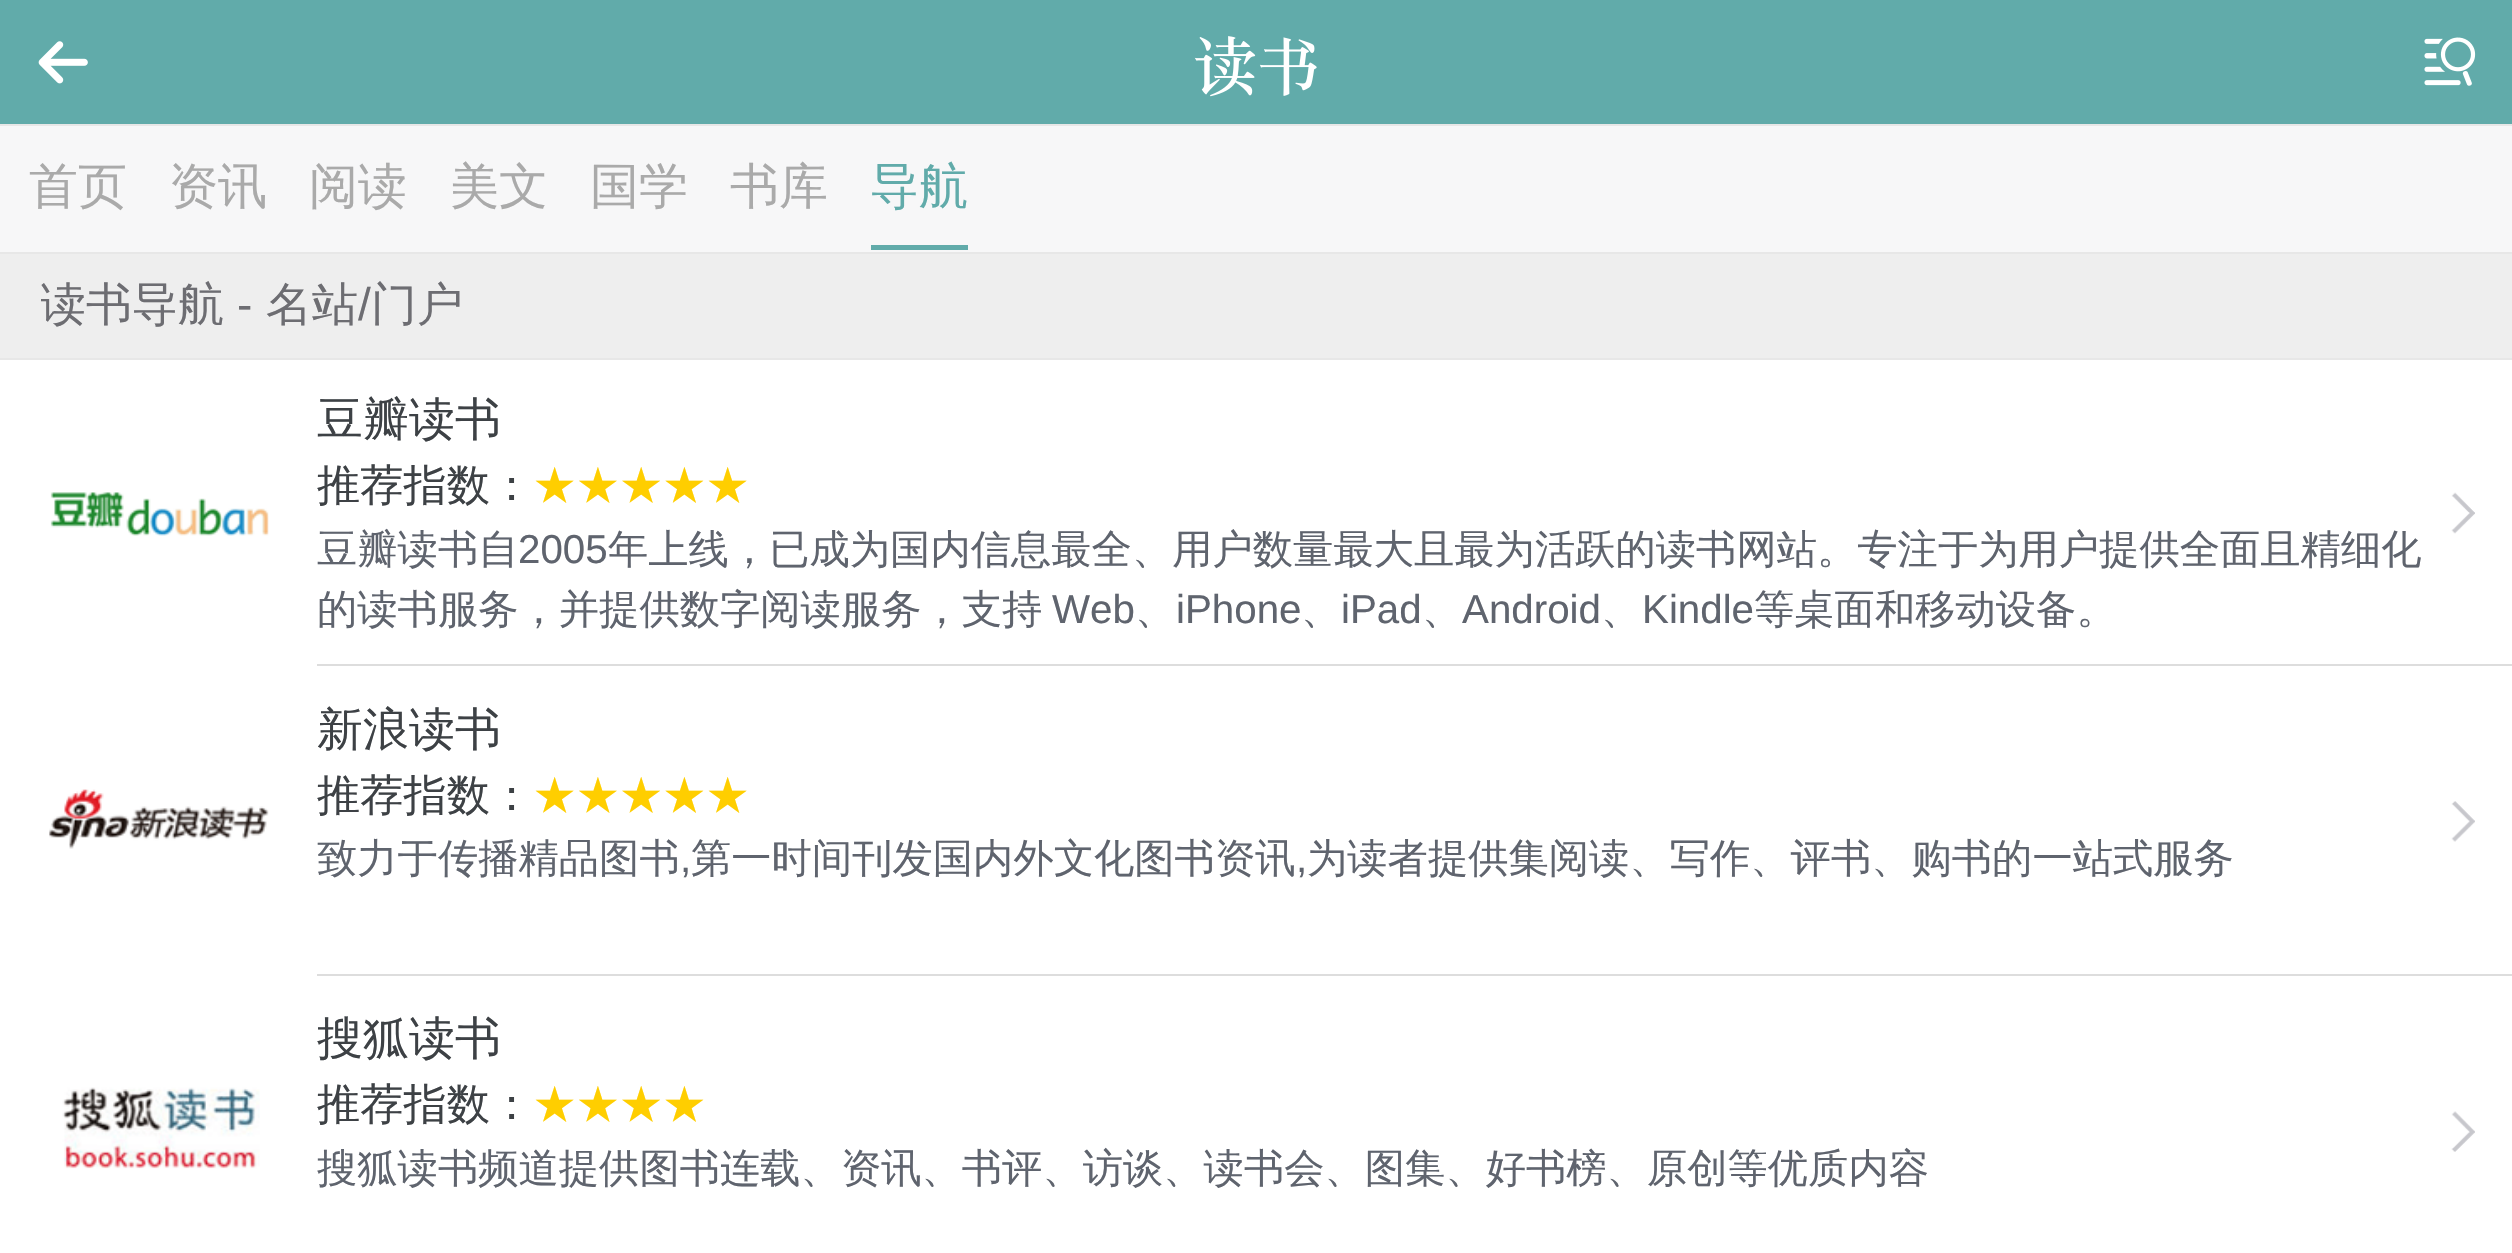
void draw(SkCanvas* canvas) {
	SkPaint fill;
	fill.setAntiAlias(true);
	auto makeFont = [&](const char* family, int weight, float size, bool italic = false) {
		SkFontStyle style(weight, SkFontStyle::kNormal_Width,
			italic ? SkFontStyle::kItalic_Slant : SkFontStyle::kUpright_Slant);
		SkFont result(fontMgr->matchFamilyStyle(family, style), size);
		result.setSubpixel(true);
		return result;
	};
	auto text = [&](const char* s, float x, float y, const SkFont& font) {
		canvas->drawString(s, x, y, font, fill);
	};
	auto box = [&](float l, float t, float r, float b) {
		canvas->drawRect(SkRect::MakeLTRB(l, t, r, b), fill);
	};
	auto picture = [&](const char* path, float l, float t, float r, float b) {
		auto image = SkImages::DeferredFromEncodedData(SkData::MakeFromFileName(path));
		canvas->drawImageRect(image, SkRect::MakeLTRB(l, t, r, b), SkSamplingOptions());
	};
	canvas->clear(0xFFEEEEEE);
	fill.setColor(0xFF61ABAA);
	box(0, 0, 2512, 124);
	picture("image0.png", 38, 41, 88, 84);
	picture("image1.png", 1194, 36, 1317, 97);
	picture("image2.png", 2424, 37, 2476, 86);
	fill.setColor(0xFFE7E7E7);
	box(0, 124, 2512, 126);
	fill.setColor(0xFFF7F7F8);
	box(0, 126, 2512, 252);
	fill.setColor(0xFF61ABAA);
	box(871, 245, 968, 250);
	fill.setColor(0xFFE7E7E7);
	box(0, 252, 2512, 254);
	fill.setColor(0xFFFFFFFF);
	box(0, 360, 2512, 1253);
	fill.setColor(0xFFE7E7E7);
	box(0, 358, 2512, 360);
	picture("image3.png", 50, 492, 269, 536);
	picture("image4.png", 2451, 492, 2475, 534);
	fill.setColor(0xFFDDDDDD);
	box(317, 664, 2512, 666);
	picture("image5.png", 49, 789, 269, 849);
	picture("image6.png", 2451, 801, 2475, 842);
	box(317, 974, 2512, 976);
	picture("image7.png", 62, 1087, 260, 1169);
	picture("image8.png", 2451, 1111, 2475, 1152);
	auto font1 = makeFont("WenQuanYi Zen Hei", 500, 49);
	fill.setColor(0xFFAAAAAA);
	text("首页", 29, 203, font1);
	text("资讯", 169, 203, font1);
	text("阅读", 309, 203, font1);
	text("美文", 450, 203, font1);
	text("国学", 590, 203, font1);
	text("书库", 730, 203, font1);
	fill.setColor(0xFF61ABAA);
	text("导航", 870, 203, font1);
	canvas->save();
	canvas->clipRect(SkRect::MakeLTRB(41, 281, 2473, 329));
	auto font2 = makeFont("WenQuanYi Zen Hei", 500, 46);
	fill.setColor(0xFF6D6D72);
	text("读书导航", 40, 320, font2);
	canvas->restore();
	auto font3 = makeFont("Liberation Sans", 400, 46);
	text("-", 237, 320, font3);
	text("名站", 266, 320, font2);
	text("/", 358, 320, font3);
	text("门户", 371, 320, font2);
	fill.setColor(0xFF3D4145);
	text("豆瓣读书", 317, 435, font2);
	auto font4 = makeFont("WenQuanYi Zen Hei", 500, 43.25f);
	text("推荐指数：", 317, 500, font4);
	fill.setColor(0xFFFFCE00);
	text("★★★★★", 533, 500, font4);
	auto font5 = makeFont("WenQuanYi Zen Hei", 500, 40.3f);
	fill.setColor(0xFF5F646E);
	text("豆瓣读书自", 317, 563, font5);
	auto font6 = makeFont("Liberation Sans", 400, 40.3f);
	text("2005", 518, 563, font6);
	text("年上线，已成为国内信息最全、用户数量最大且最为活跃的读书网站。专注于为用户提供全面且精细化", 608, 563, font5);
	text("的读书服务，并提供数字阅读服务，支持", 317, 623, font5);
	text("Web", 1052, 623, font6);
	text("、", 1135, 623, font5);
	text("iPhone", 1176, 623, font6);
	text("、", 1301, 623, font5);
	text("iPad", 1341, 623, font6);
	text("、", 1422, 623, font5);
	text("Android", 1462, 623, font6);
	text("、", 1601, 623, font5);
	text("Kindle", 1642, 623, font6);
	text("等桌面和移动设备。", 1754, 623, font5);
	fill.setColor(0xFF3D4145);
	text("新浪读书", 317, 745, font2);
	text("推荐指数：", 317, 810, font4);
	fill.setColor(0xFFFFCE00);
	text("★★★★★", 533, 810, font4);
	fill.setColor(0xFF5F646E);
	text("致力于传播精品图书", 317, 872, font5);
	text(",", 680, 872, font6);
	text("第一时间刊发国内外文化图书资讯", 691, 872, font5);
	text(",", 1296, 872, font6);
	text("为读者提供集阅读、写作、评书、购书的一站式服务", 1307, 872, font5);
	fill.setColor(0xFF3D4145);
	text("搜狐读书", 317, 1054, font2);
	text("推荐指数：", 317, 1119, font4);
	fill.setColor(0xFFFFCE00);
	text("★★★★", 533, 1119, font4);
	fill.setColor(0xFF5F646E);
	text("搜狐读书频道提供图书连载、资讯、书评、访谈、读书会、图集、好书榜、原创等优质内容", 317, 1182, font5);
}
